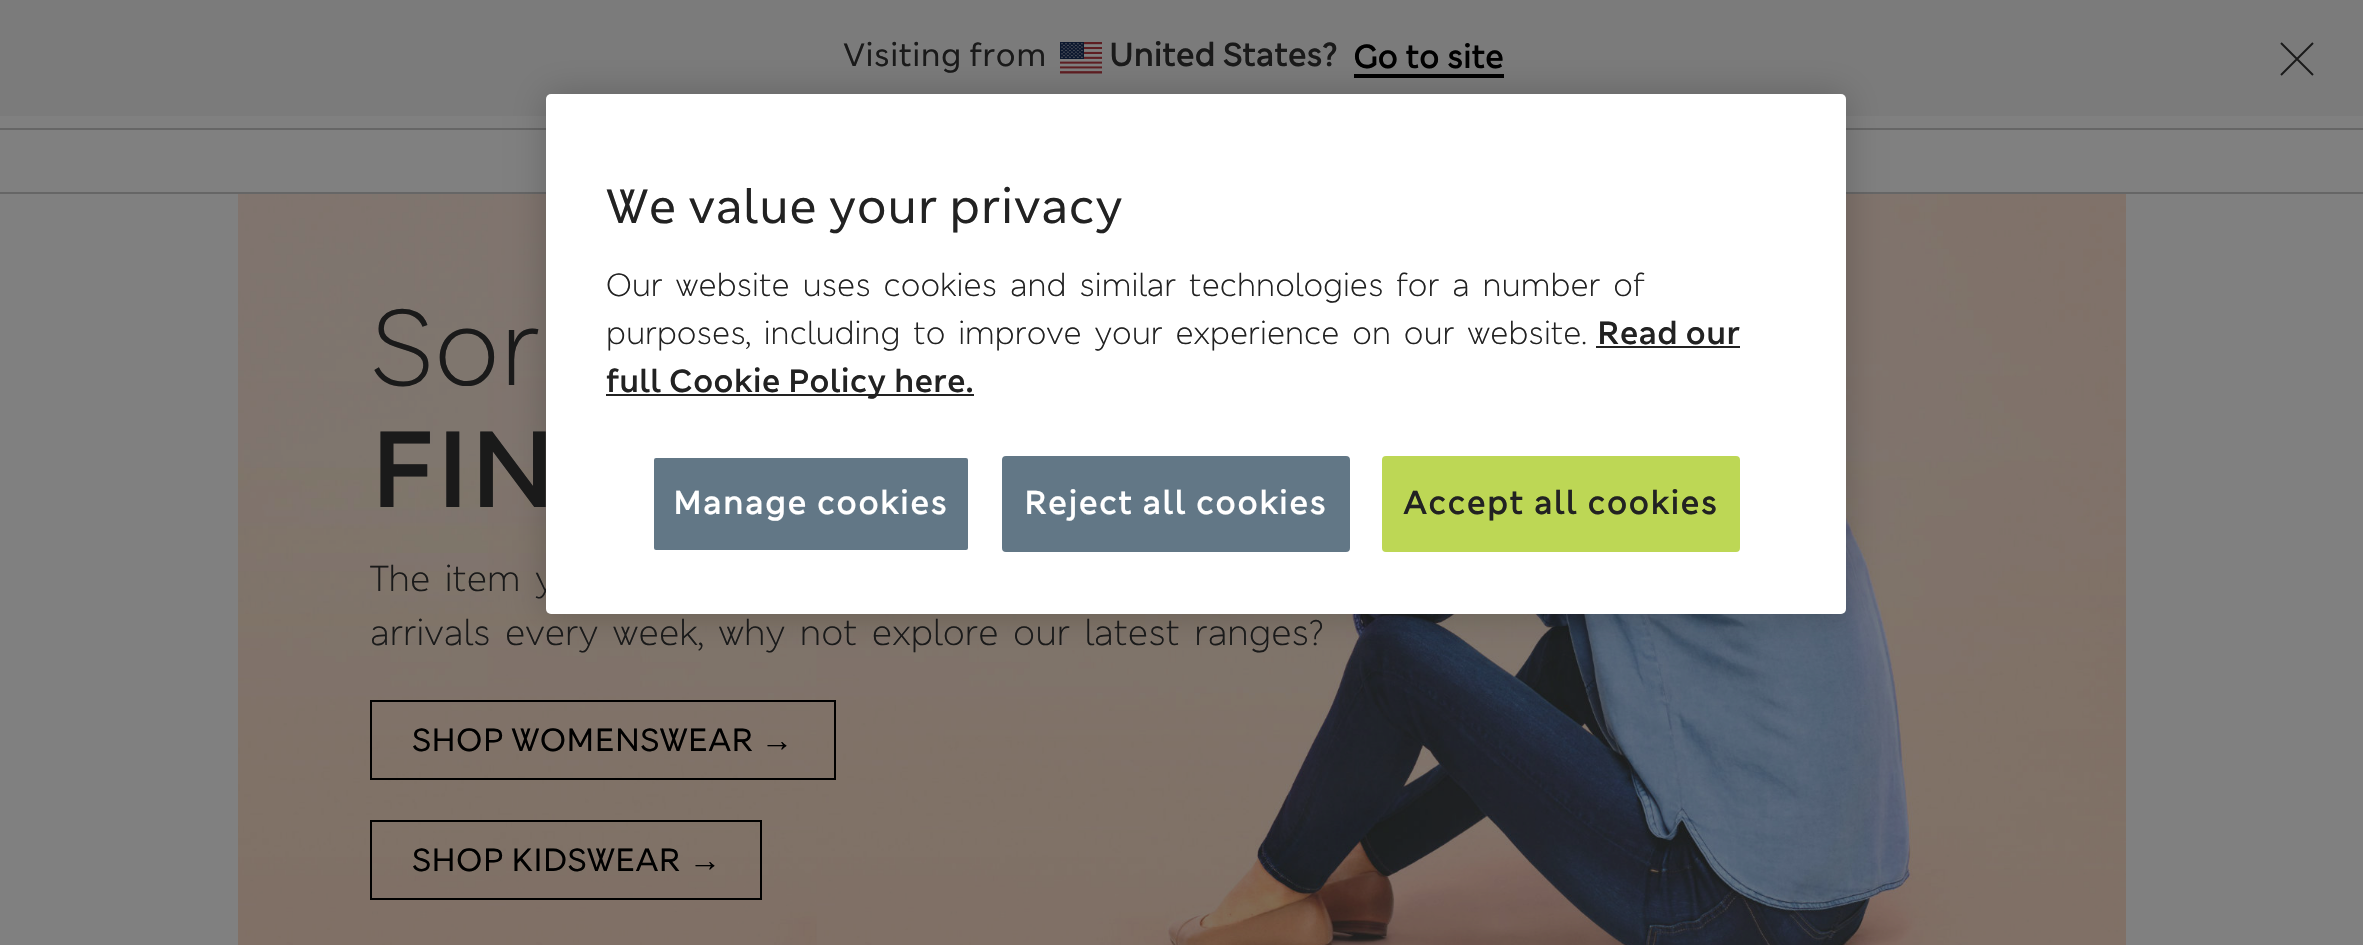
void draw(SkCanvas* canvas) {
	SkPaint fill;
	fill.setAntiAlias(true);
	auto makeFont = [&](const char* family, int weight, float size, bool italic = false) {
		SkFontStyle style(weight, SkFontStyle::kNormal_Width,
			italic ? SkFontStyle::kItalic_Slant : SkFontStyle::kUpright_Slant);
		SkFont result(fontMgr->matchFamilyStyle(family, style), size);
		result.setSubpixel(true);
		return result;
	};
	auto text = [&](const char* s, float x, float y, const SkFont& font) {
		canvas->drawString(s, x, y, font, fill);
	};
	auto spacedText = [&](const char* s, float x, float y, const SkFont& font, const SkPaint& ink, float letter, float word) {
		std::vector<SkGlyphID> glyphs(font.countText(s, strlen(s), SkTextEncoding::kUTF8));
		std::vector<float> xs(glyphs.size());
		font.textToGlyphs(s, strlen(s), SkTextEncoding::kUTF8, glyphs);
		font.getXPos(glyphs, xs, x);
		float extra = 0;
		for (size_t i = 0; i < glyphs.size(); i++) {
			xs[i] += extra;
			extra += letter + word * (glyphs[i] == font.unicharToGlyph(' '));
		}
		canvas->drawTextBlob(SkTextBlob::MakeFromPosHGlyphs(glyphs, xs, y, font), 0, 0, ink);
	};
	auto box = [&](float l, float t, float r, float b) {
		canvas->drawRect(SkRect::MakeLTRB(l, t, r, b), fill);
	};
	auto roundBox = [&](float l, float t, float r, float b, float radius) {
		canvas->drawRoundRect(SkRect::MakeLTRB(l, t, r, b), radius, radius, fill);
	};
	auto picture = [&](const char* path, float l, float t, float r, float b) {
		auto image = SkImages::DeferredFromEncodedData(SkData::MakeFromFileName(path));
		canvas->drawImageRect(image, SkRect::MakeLTRB(l, t, r, b), SkSamplingOptions());
	};
	canvas->clear(0xFF808080);
	fill.setColor(0xFF7B7B7B);
	box(0, 0, 2363, 116);
	picture("image0.png", 1060, 42, 1102, 74);
	fill.setColor(0xFF000000);
	box(1354, 74, 1504, 78);
	fill.setStyle(SkPaint::kStroke_Style);
	fill.setStrokeWidth(2);
	fill.setColor(0xFF1A1A1A);
	canvas->drawPath(SkPathBuilder().moveTo(2281, 43).lineTo(2313, 75).moveTo(2313, 43).lineTo(2281, 75).detach(), fill);
	fill.setStyle(SkPaint::kFill_Style);
	fill.setColor(0xFF666666);
	box(0, 128, 2363, 130);
	box(0, 192, 2363, 194);
	picture("image1.png", 238, 194, 2126, 945);
	fill.setStyle(SkPaint::kStroke_Style);
	fill.setColor(0xFF000000);
	canvas->drawRect(SkRect::MakeLTRB(371, 701, 835, 779), fill);
	canvas->drawRect(SkRect::MakeLTRB(371, 821, 761, 899), fill);
	fill.setStyle(SkPaint::kFill_Style);
	fill.setColor(0x33000000);
	fill.setMaskFilter(SkMaskFilter::MakeBlur(kNormal_SkBlurStyle, 18));
	canvas->drawRoundRect(SkRect::MakeLTRB(546, 94, 1846, 614), 5, 5, fill);
	fill.setMaskFilter(nullptr);
	auto font1 = makeFont("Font", 400, 32);
	fill.setColor(0xFF1A1A1A);
	text("Visiting from", 843, 66, font1);
	auto font2 = makeFont("Font", 700, 32);
	text("United States?", 1109, 66, font2);
	fill.setColor(0xFF000000);
	text("Go to site", 1353, 68, font2);
	auto font3 = makeFont("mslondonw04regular", 400, 108);
	fill.setColor(0xFF1A1A1A);
	text("Sor", 370, 385, font3);
	auto font4 = makeFont("Font", 600, 108);
	text("FIN", 370, 507, font4);
	auto font5 = makeFont("mslondonw04regular", 400, 36);
	text("The item y", 370, 591, font5);
	text("arrivals every week, why not explore our latest ranges?", 370, 645, font5);
	fill.setColor(0xFF000000);
	text("SHOP WOMENSWEAR", 412, 751, font1);
	auto font6 = makeFont("Liberation Serif", 400, 32);
	text("→", 761, 751, font6);
	text("SHOP KIDSWEAR", 412, 871, font1);
	text("→", 689, 871, font6);
	fill.setColor(0xFFFFFFFF);
	roundBox(546, 94, 1846, 614, 5);
	auto font7 = makeFont("Font", 400, 48);
	fill.setColor(0xFF222222);
	text("We value your privacy", 606, 223, font7);
	auto font8 = makeFont("mslondonw04regular", 400, 32);
	text("Our website uses cookies and similar technologies for a number of", 606, 296, font8);
	text("purposes, including to improve your experience on our website.", 606, 344, font8);
	auto font9 = makeFont("Font", 600, 32);
	text("Read our", 1597, 344, font9);
	box(1596, 346, 1740, 348);
	box(606, 394, 974, 396);
	text("full Cookie Policy here.", 606, 392, font9);
	fill.setColor(0xFF627786);
	canvas->drawRoundRect(SkRect::MakeLTRB(653, 457, 969, 551), 3, 3, fill);
	fill.setStyle(SkPaint::kStroke_Style);
	fill.setColor(0xFFFFFFFF);
	canvas->drawRoundRect(SkRect::MakeLTRB(653, 457, 969, 551), 3, 3, fill);
	fill.setStyle(SkPaint::kFill_Style);
	spacedText("Manage cookies", 673, 514, font2, fill, 1.6f, 0);
	fill.setColor(0xFF627786);
	canvas->drawRoundRect(SkRect::MakeLTRB(1003, 457, 1349, 551), 3, 3, fill);
	fill.setStyle(SkPaint::kStroke_Style);
	canvas->drawRoundRect(SkRect::MakeLTRB(1003, 457, 1349, 551), 3, 3, fill);
	fill.setStyle(SkPaint::kFill_Style);
	fill.setColor(0xFFFFFFFF);
	spacedText("Reject all cookies", 1024, 514, font2, fill, 1.6f, 0);
	fill.setColor(0xFFBDD755);
	canvas->drawRoundRect(SkRect::MakeLTRB(1383, 457, 1739, 551), 3, 3, fill);
	fill.setStyle(SkPaint::kStroke_Style);
	canvas->drawRoundRect(SkRect::MakeLTRB(1383, 457, 1739, 551), 3, 3, fill);
	fill.setStyle(SkPaint::kFill_Style);
	fill.setColor(0xFF222222);
	spacedText("Accept all cookies", 1403, 514, font2, fill, 1.6f, 0);
}
